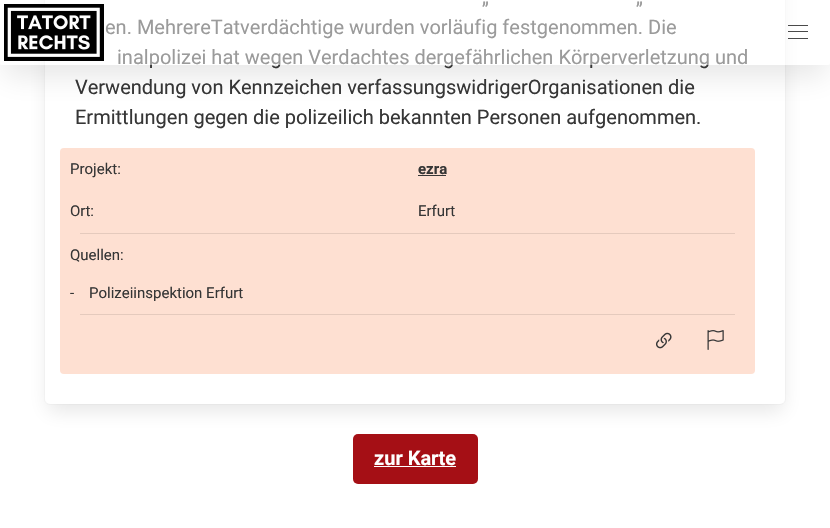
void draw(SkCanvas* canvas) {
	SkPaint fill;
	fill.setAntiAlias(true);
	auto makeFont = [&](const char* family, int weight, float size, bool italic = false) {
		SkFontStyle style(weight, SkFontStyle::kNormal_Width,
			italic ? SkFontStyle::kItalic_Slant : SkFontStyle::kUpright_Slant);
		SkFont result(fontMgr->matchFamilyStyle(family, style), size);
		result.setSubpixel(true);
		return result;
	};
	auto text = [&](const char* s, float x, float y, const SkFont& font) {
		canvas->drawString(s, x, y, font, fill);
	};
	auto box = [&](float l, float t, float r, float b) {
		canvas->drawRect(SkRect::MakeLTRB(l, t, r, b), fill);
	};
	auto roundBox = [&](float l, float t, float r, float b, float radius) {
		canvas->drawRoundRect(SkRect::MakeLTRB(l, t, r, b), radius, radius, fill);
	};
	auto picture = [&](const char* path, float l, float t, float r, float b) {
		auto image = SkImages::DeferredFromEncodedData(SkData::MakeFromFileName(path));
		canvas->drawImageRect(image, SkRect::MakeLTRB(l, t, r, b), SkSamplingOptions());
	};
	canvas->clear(0xFFFFFFFF);
	fill.setStyle(SkPaint::kStroke_Style);
	fill.setStrokeWidth(1);
	fill.setColor(0xFFFAFAFA);
	canvas->drawRoundRect(SkRect::MakeLTRB(44.5f, -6.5f, 785.5f, 404.5f), 5.5f, 5.5f, fill);
	fill.setStyle(SkPaint::kFill_Style);
	fill.setColor(0x1A0A0A0A);
	fill.setMaskFilter(SkMaskFilter::MakeBlur(kNormal_SkBlurStyle, 10));
	canvas->drawRoundRect(SkRect::MakeLTRB(48, -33, 783, 411), 2.5f, 2.5f, fill);
	fill.setMaskFilter(nullptr);
	fill.setColor(0xFFFFFFFF);
	roundBox(45, -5, 785, 404, 5);
	canvas->save();
	canvas->clipPath(SkPathBuilder(SkPathFillType::kEvenOdd).moveTo(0, 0).lineTo(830, 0).lineTo(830, 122).lineTo(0, 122).close().moveTo(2, 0).lineTo(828, 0).cubicTo(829, 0, 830, 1, 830, 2).lineTo(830, 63).cubicTo(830, 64, 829, 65, 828, 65).lineTo(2, 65).cubicTo(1, 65, 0, 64, 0, 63).lineTo(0, 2).cubicTo(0, 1, 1, 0, 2, 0).close().detach(), true);
	fill.setColor(0x1A0A0A0A);
	fill.setMaskFilter(SkMaskFilter::MakeBlur(kNormal_SkBlurStyle, 15));
	canvas->drawRect(SkRect::MakeLTRB(4, 19, 826, 76), fill);
	fill.setMaskFilter(nullptr);
	canvas->restore();
	fill.setColor(0xFFFEE0D2);
	roundBox(60, 148, 755, 374, 4);
	fill.setColor(0xFF363636);
	box(418, 175, 446, 176);
	fill.setColor(0xFFE5CABD);
	box(80, 233, 735, 234);
	box(80, 314, 735, 315);
	picture("image1.png", 656, 332, 672, 349);
	picture("image2.png", 707, 330, 724, 350);
	fill.setColor(0xFFA50F15);
	roundBox(353, 434, 478, 484, 5);
	fill.setColor(0xFFFFFFFF);
	box(374, 466, 456, 467);
	auto font1 = makeFont("Roboto", 400, 20);
	fill.setColor(0xFF363636);
	text("„", 482, 4, font1);
	text("„", 636, 4, font1);
	text("en. MehrereTatverdächtige wurden vorläufig festgenommen. Die", 105, 34, font1);
	text("inalpolizei hat wegen Verdachtes dergefährlichen Körperverletzung und", 117, 64, font1);
	fill.setColor(0x80FFFFFF);
	roundBox(0, 0, 830, 65, 2);
	fill.setColor(0xFF4A4A4A);
	box(788, 38, 808, 39);
	box(788, 31, 808, 32);
	box(788, 25, 808, 26);
	picture("image0.png", 4, 4, 104, 61);
	fill.setColor(0xFF363636);
	text("Verwendung von Kennzeichen verfassungswidrigerOrganisationen die", 75, 94, font1);
	text("Ermittlungen gegen die polizeilich bekannten Personen aufgenommen.", 75, 124, font1);
	auto font2 = makeFont("Roboto", 400, 15);
	text("Projekt:", 70, 174, font2);
	auto font3 = makeFont("Roboto", 700, 15);
	text("ezra", 418, 174, font3);
	text("Ort:", 70, 216, font2);
	text("Erfurt", 418, 216, font2);
	text("Quellen:", 70, 260, font2);
	text("-", 70, 298, font2);
	text("Polizeiinspektion Erfurt", 89, 298, font2);
	auto font4 = makeFont("Roboto", 700, 20);
	fill.setColor(0xFFFFFFFF);
	text("zur Karte", 374, 465, font4);
}
